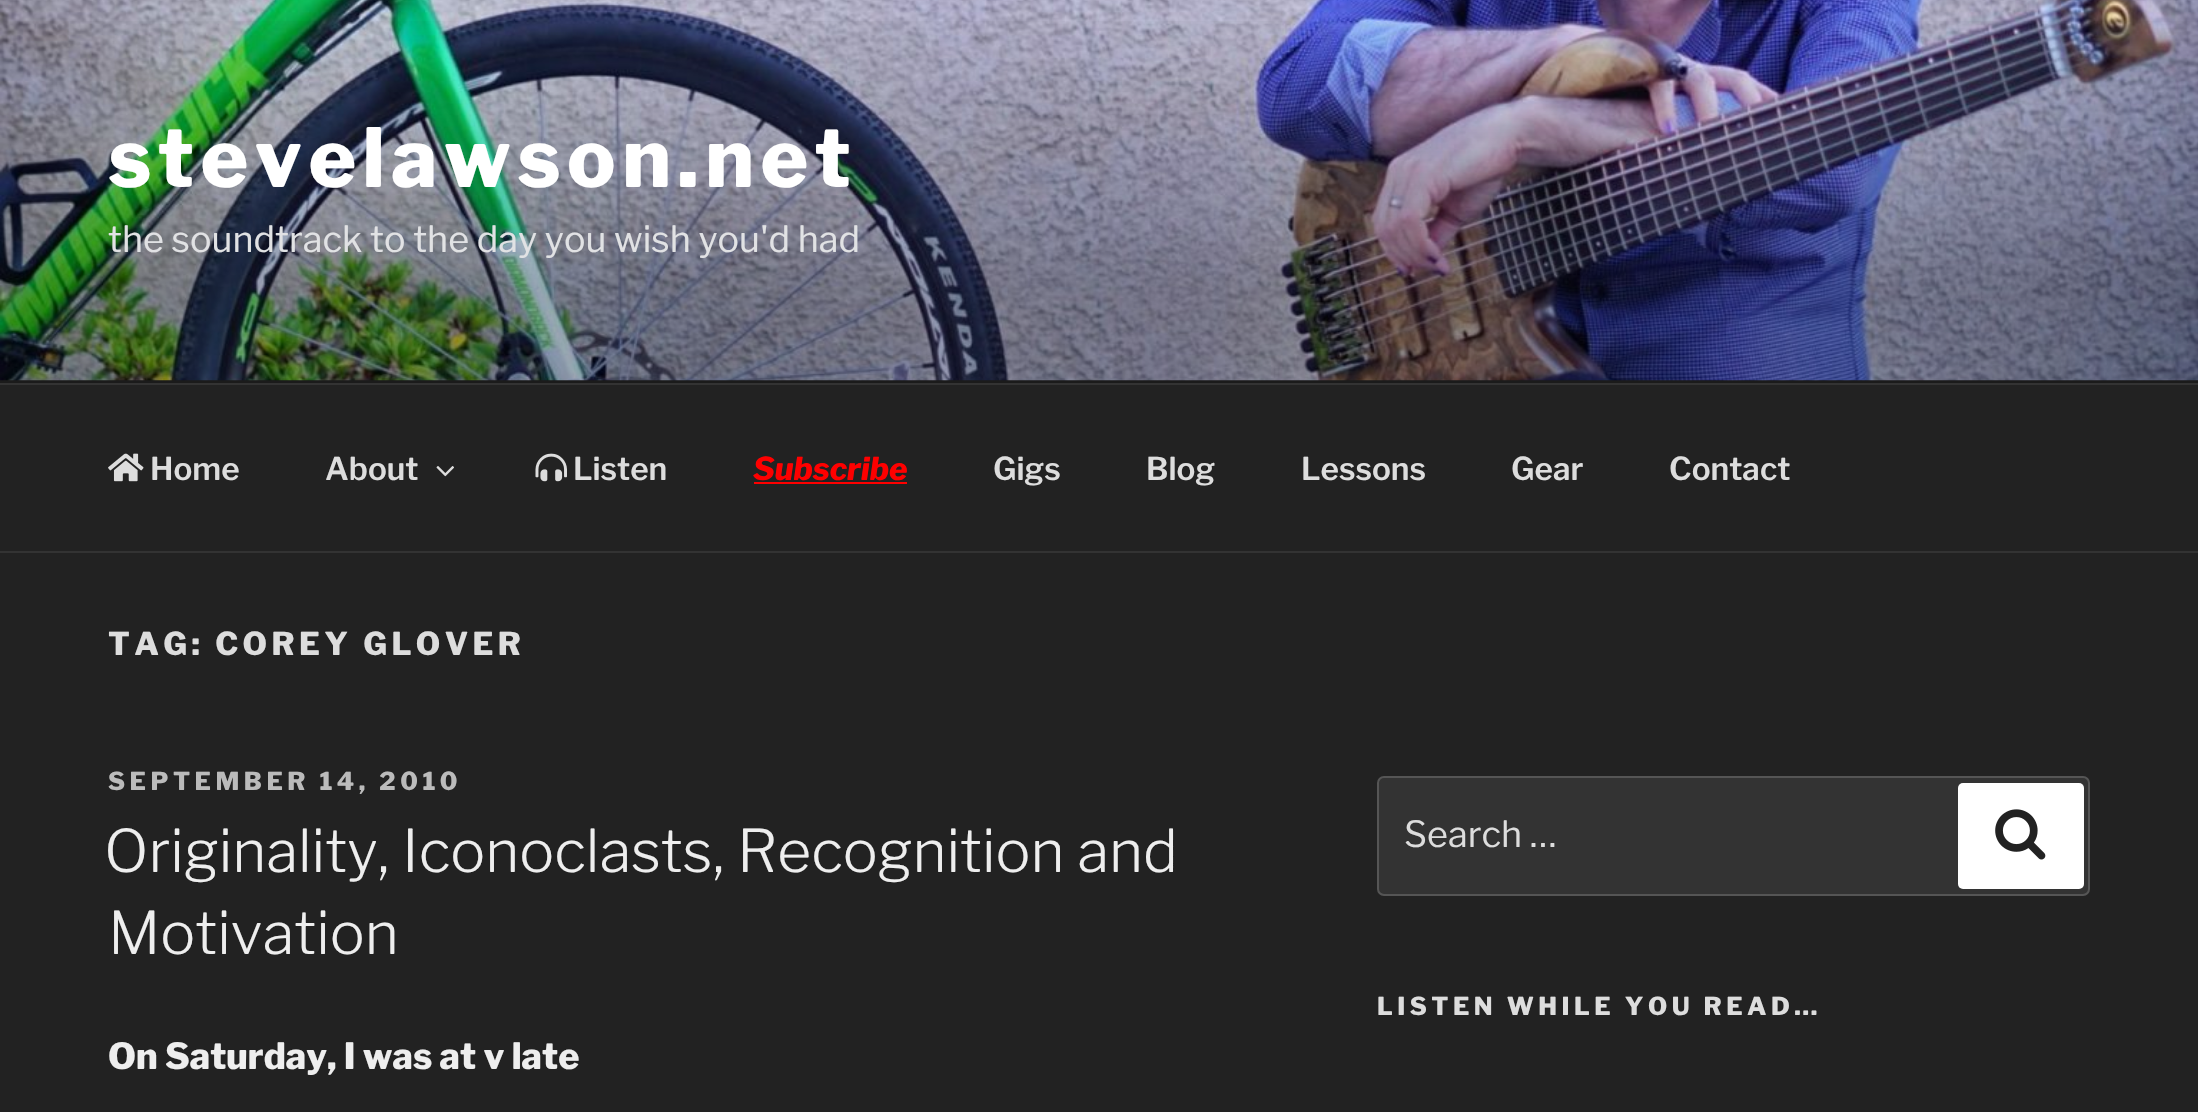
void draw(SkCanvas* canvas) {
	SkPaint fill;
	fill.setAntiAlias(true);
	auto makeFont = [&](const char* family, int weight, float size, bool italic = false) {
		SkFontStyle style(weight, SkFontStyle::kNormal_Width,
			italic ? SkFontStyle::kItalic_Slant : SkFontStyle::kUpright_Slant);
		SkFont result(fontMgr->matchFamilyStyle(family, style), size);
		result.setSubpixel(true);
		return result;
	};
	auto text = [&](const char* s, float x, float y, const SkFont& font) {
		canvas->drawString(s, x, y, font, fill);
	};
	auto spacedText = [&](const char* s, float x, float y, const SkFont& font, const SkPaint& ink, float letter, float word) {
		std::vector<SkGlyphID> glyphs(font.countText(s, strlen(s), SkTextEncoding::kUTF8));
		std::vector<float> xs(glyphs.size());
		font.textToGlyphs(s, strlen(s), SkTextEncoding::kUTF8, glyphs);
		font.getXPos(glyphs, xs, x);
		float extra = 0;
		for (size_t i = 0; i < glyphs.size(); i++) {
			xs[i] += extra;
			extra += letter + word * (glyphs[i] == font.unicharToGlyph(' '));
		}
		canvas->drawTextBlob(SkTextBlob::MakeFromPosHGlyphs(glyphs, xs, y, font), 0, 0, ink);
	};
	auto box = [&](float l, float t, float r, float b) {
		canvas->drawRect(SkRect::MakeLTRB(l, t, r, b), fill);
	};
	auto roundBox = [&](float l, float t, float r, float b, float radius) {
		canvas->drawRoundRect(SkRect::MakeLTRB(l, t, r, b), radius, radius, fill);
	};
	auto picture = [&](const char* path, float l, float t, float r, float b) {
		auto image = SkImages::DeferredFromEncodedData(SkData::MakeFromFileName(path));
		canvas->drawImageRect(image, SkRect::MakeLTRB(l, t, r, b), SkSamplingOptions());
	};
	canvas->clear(0xFF222222);
	fill.setColor(0xFF262626);
	box(0, 380, 2198, 383);
	picture("image0.png", 0, 0, 2198, 381);
	{
		const SkColor colors[] = {0x00000000, 0x4D000000, 0x4D000000};
		const float stops[] = {0, 0.75f, 1};
		const SkPoint ends[] = {{1099, 0}, {1099, 383}};
		fill.setShader(SkGradientShader::MakeLinear(ends, colors, stops, 3, SkTileMode::kClamp));
		fill.setAlpha(255);
	}
	box(0, 21, 2198, 383);
	fill.setShader(nullptr);
	fill.setColor(0xFF333333);
	box(0, 383, 2198, 385);
	box(0, 551, 2198, 553);
	picture("image1.png", 108, 453, 144, 482);
	picture("image2.png", 436, 466, 454, 477);
	picture("image3.png", 535, 453, 567, 482);
	fill.setColor(0xFFFF0000);
	box(754, 482, 907, 484);
	fill.setColor(0xFF333333);
	canvas->drawRoundRect(SkRect::MakeLTRB(1378, 777, 2089, 895), 6, 6, fill);
	fill.setStyle(SkPaint::kStroke_Style);
	fill.setStrokeWidth(2);
	fill.setColor(0xFF555555);
	canvas->drawRoundRect(SkRect::MakeLTRB(1378, 777, 2089, 895), 6, 6, fill);
	fill.setStyle(SkPaint::kFill_Style);
	fill.setColor(0xFFFFFFFF);
	roundBox(1958, 783, 2084, 889, 5);
	picture("image4.png", 1995, 809, 2046, 860);
	auto font1 = makeFont("Libre Franklin", 100, 81);
	spacedText("stevelawson.net", 108, 187, font1, fill, 6.5f, 0);
	auto font2 = makeFont("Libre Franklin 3", 100, 36);
	fill.setColor(0xFFE1E2E4);
	text("the soundtrack to the day you wish you'd had", 108, 252, font2);
	auto font3 = makeFont("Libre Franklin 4", 100, 31.5f);
	fill.setColor(0xFFDDDDDD);
	text("Home", 150, 480, font3);
	text("About", 325, 480, font3);
	text("Listen", 573, 480, font3);
	auto font4 = makeFont("Libre Franklin", 100, 31.5f, true);
	fill.setColor(0xFFFF0000);
	text("Subscribe", 753, 480, font4);
	fill.setColor(0xFFDDDDDD);
	text("Gigs", 993, 480, font3);
	text("Blog", 1146, 480, font3);
	text("Lessons", 1301, 480, font3);
	text("Gear", 1511, 480, font3);
	text("Contact", 1669, 480, font3);
	auto font5 = makeFont("Libre Franklin", 100, 31.5f);
	spacedText("TAG: COREY GLOVER", 108, 655, font5, fill, 4.4f, 0);
	auto font6 = makeFont("Libre Franklin", 100, 24.75f);
	fill.setColor(0xFFBBBBBB);
	spacedText("SEPTEMBER 14, 2010", 108, 790, font6, fill, 4.5f, 0);
	auto font7 = makeFont("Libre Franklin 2", 100, 58.5f);
	fill.setColor(0xFFEEEEEE);
	text("Originality, Iconoclasts, Recognition and", 104, 872, font7);
	text("Motivation", 108, 954, font7);
	auto font8 = makeFont("Libre Franklin", 100, 36);
	text("On Saturday, I was at v late", 108, 1069, font8);
	fill.setColor(0xFFDDDDDD);
	text("Search …", 1404, 847, font2);
	spacedText("LISTEN WHILE YOU READ…", 1377, 1015, font6, fill, 4.5f, 0);
}
